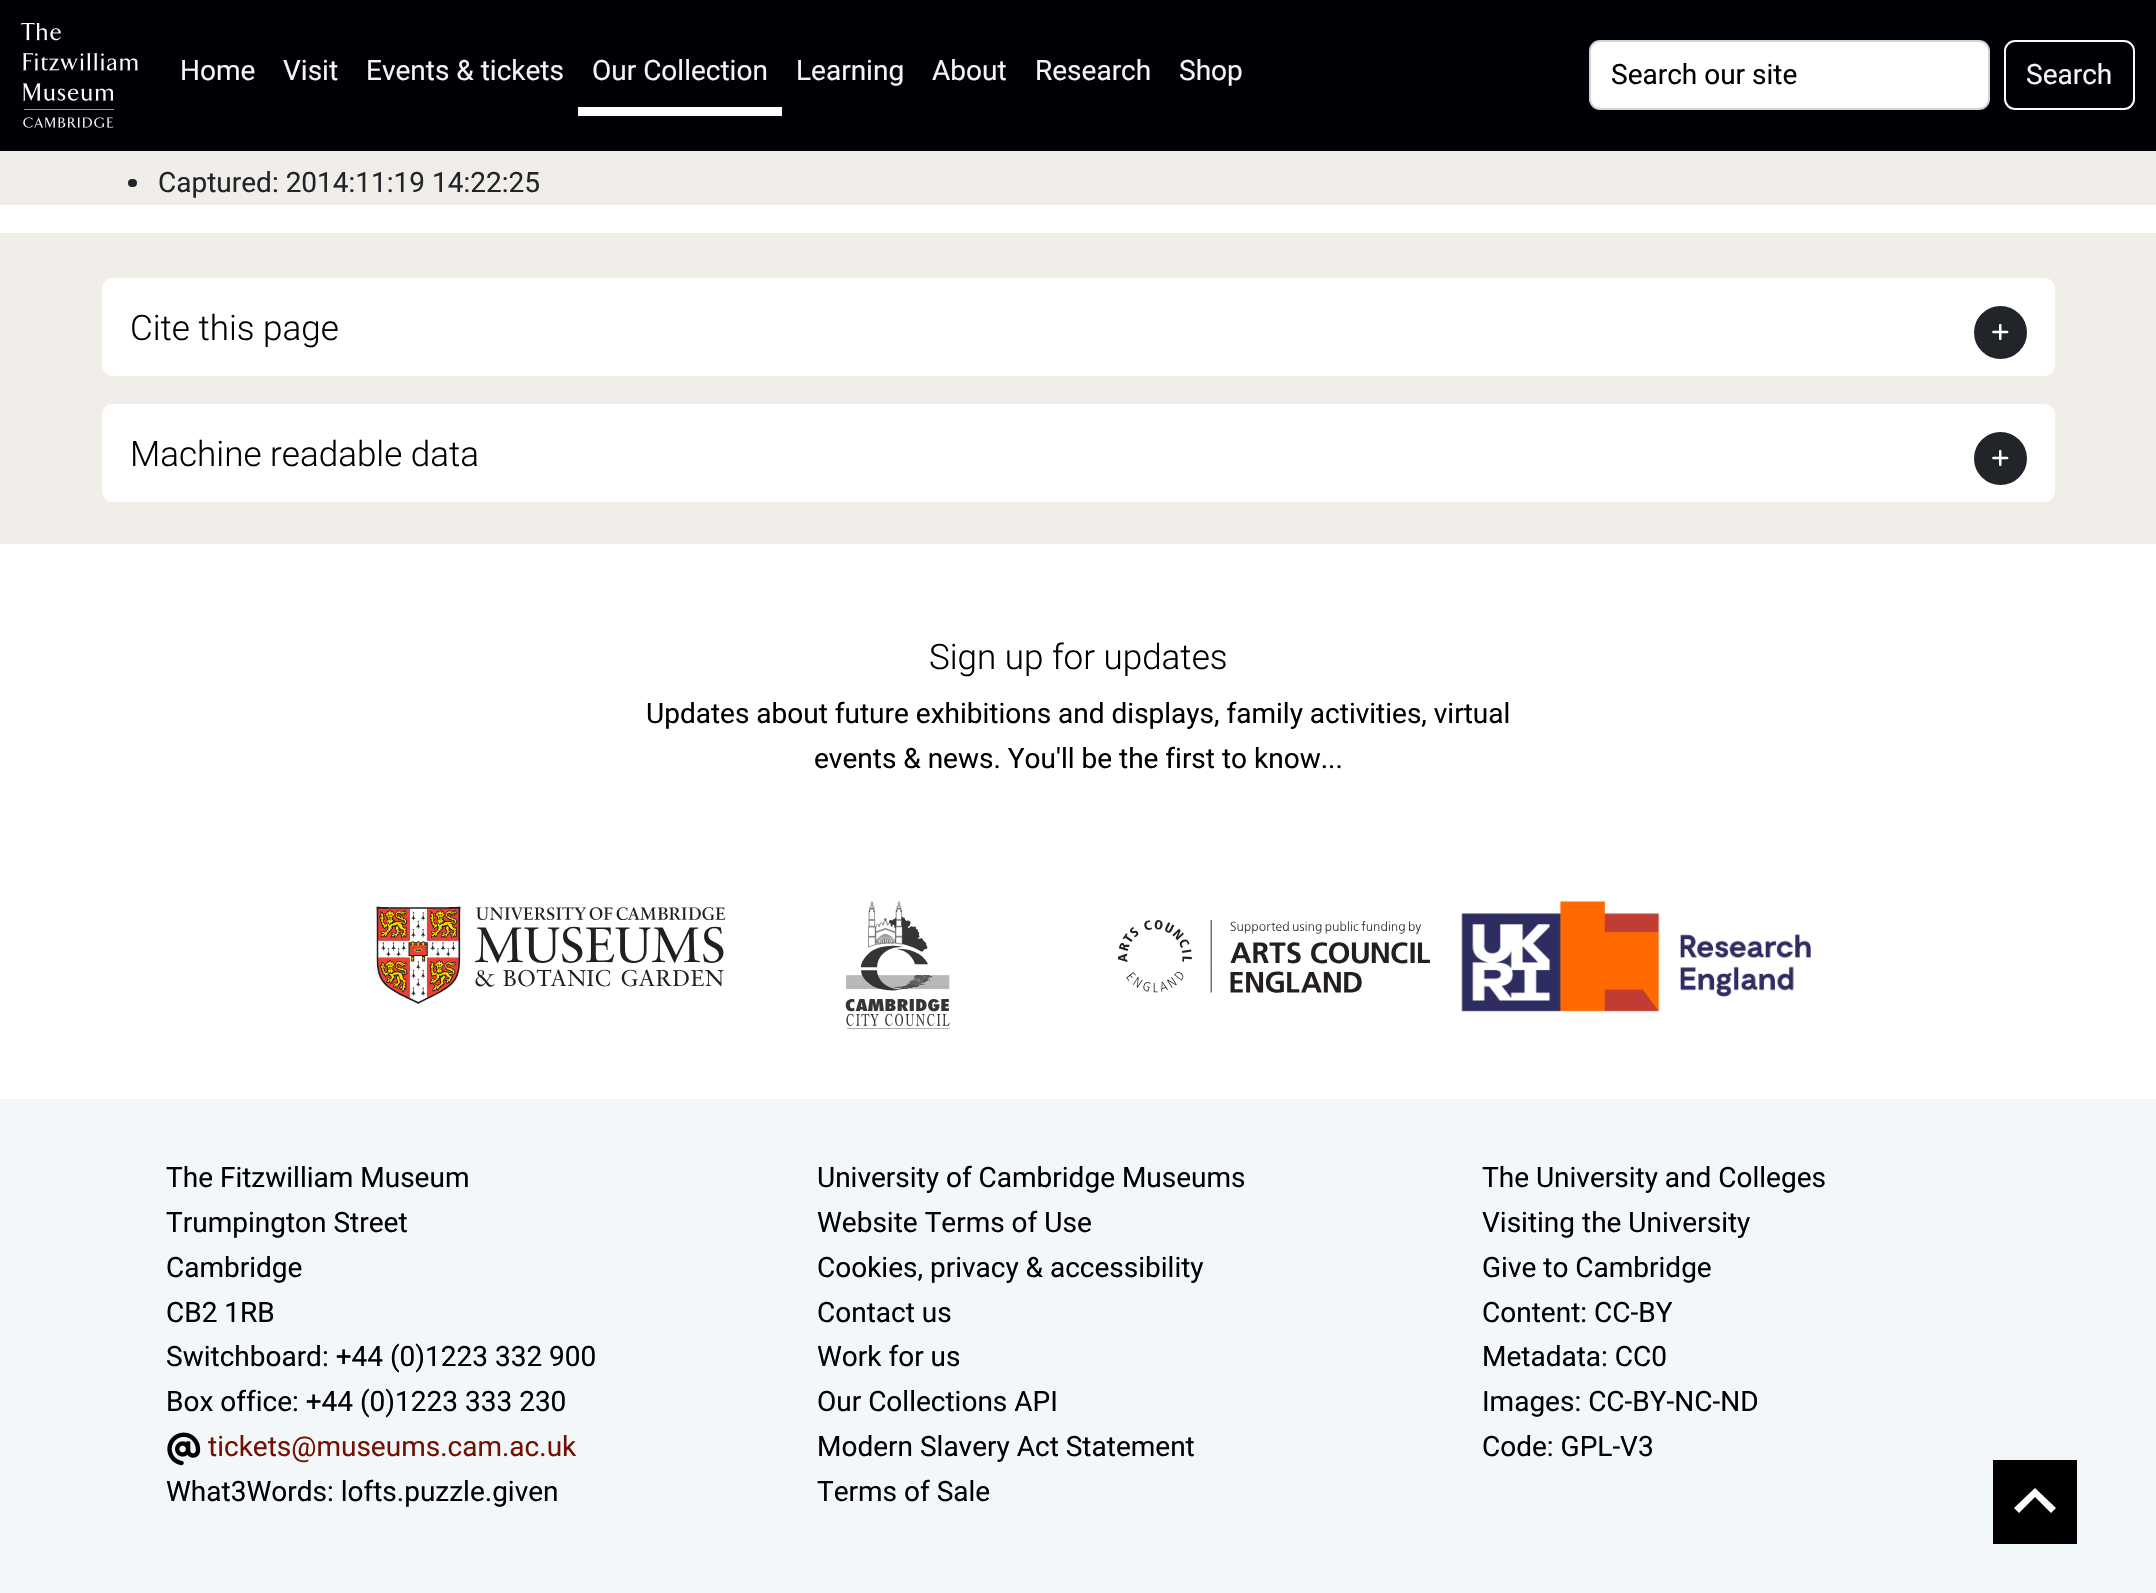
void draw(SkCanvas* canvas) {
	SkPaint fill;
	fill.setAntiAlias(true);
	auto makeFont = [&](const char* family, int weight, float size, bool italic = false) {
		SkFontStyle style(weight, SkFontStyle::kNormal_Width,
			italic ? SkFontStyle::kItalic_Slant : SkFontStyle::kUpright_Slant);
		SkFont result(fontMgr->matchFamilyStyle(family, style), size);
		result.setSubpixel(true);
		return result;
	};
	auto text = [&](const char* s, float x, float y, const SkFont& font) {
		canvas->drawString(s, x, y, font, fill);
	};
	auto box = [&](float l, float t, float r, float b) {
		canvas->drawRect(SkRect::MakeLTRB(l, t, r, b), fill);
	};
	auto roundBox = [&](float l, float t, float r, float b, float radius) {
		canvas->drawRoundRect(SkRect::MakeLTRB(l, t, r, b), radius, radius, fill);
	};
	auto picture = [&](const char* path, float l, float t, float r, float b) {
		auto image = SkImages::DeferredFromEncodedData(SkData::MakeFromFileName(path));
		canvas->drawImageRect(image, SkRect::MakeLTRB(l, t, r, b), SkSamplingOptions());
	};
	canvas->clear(0xFFFFFFFF);
	fill.setColor(0xFF010007);
	box(0, 0, 2156, 151);
	picture("image0.png", 21, 23, 138, 128);
	fill.setColor(0xFFFFFFFF);
	box(578, 107, 782, 116);
	canvas->drawRoundRect(SkRect::MakeLTRB(1590, 41, 1989, 109), 10, 10, fill);
	fill.setStyle(SkPaint::kStroke_Style);
	fill.setStrokeWidth(2);
	fill.setColor(0xFFCED4DA);
	canvas->drawRoundRect(SkRect::MakeLTRB(1590, 41, 1989, 109), 10, 10, fill);
	fill.setColor(0xFFF8F9FA);
	canvas->drawRoundRect(SkRect::MakeLTRB(2005, 41, 2134, 109), 10, 10, fill);
	fill.setStyle(SkPaint::kFill_Style);
	fill.setColor(0xFFF1EEEA);
	box(0, 151, 2156, 205);
	fill.setColor(0xFF212529);
	roundBox(128, 179, 137, 187, 4);
	fill.setColor(0xFFF1EEEA);
	box(0, 233, 2156, 544);
	fill.setColor(0xFFFFFFFF);
	roundBox(102, 278, 2055, 376, 11);
	fill.setColor(0xFF212529);
	canvas->drawCircle(2000.5f, 332.5f, 25.5f, fill);
	fill.setStyle(SkPaint::kStroke_Style);
	canvas->drawCircle(2000.5f, 332.5f, 25.5f, fill);
	picture("image1.png", 1992, 323, 2009, 341);
	fill.setStyle(SkPaint::kFill_Style);
	fill.setColor(0xFFFFFFFF);
	roundBox(102, 404, 2055, 502, 11);
	fill.setColor(0xFF212529);
	canvas->drawCircle(2000.5f, 458.5f, 25.5f, fill);
	fill.setStyle(SkPaint::kStroke_Style);
	canvas->drawCircle(2000.5f, 458.5f, 25.5f, fill);
	picture("image1.png", 1992, 449, 2009, 467);
	picture("image2.png", 376, 906, 726, 1004);
	picture("image3.png", 845, 901, 950, 1029);
	picture("image4.png", 1117, 920, 1431, 993);
	picture("image5.png", 1461, 901, 1811, 1012);
	fill.setStyle(SkPaint::kFill_Style);
	fill.setColor(0xFFF2F7F9);
	box(0, 1099, 2156, 1593);
	picture("image6.png", 167, 1432, 201, 1466);
	fill.setColor(0xFF000000);
	box(1993, 1460, 2077, 1544);
	fill.setColor(0xFFFFFFFF);
	canvas->drawPath(SkPathBuilder().moveTo(2019, 1513).lineTo(2035, 1497).lineTo(2051, 1513).lineTo(2056, 1508).lineTo(2035, 1488).lineTo(2014, 1508).close().detach(), fill);
	auto font1 = makeFont("Roboto", 400, 28);
	fill.setColor(0xFFF5F5F5);
	text("Home", 180, 80, font1);
	text("Visit", 283, 80, font1);
	text("Events & tickets", 366, 80, font1);
	text("Our Collection", 592, 80, font1);
	text("Learning", 796, 80, font1);
	text("About", 932, 80, font1);
	text("Research", 1035, 80, font1);
	text("Shop", 1179, 80, font1);
	fill.setColor(0xFF000000);
	text("Search our site", 1611, 84, font1);
	fill.setColor(0xFFF5F5F5);
	text("Search", 2026, 84, font1);
	fill.setColor(0xFF212529);
	text("Captured: 2014:11:19 14:22:25", 158, 192, font1);
	auto font2 = makeFont("Roboto", 300, 35);
	fill.setColor(0xFF000000);
	text("Cite this page", 130, 340, font2);
	text("Machine readable data", 130, 466, font2);
	text("Sign up for updates", 929, 669, font2);
	text("Updates about future exhibitions and displays, family activities, virtual", 646, 723, font1);
	text("events & news. You'll be the first to know...", 814, 768, font1);
	text("The Fitzwilliam Museum", 166, 1187, font1);
	text("Trumpington Street", 166, 1232, font1);
	text("Cambridge", 166, 1277, font1);
	text("CB2 1RB", 166, 1322, font1);
	text("Switchboard: +44 (0)1223 332 900", 166, 1366, font1);
	text("Box office: +44 (0)1223 333 230", 166, 1411, font1);
	fill.setColor(0xFF731100);
	text("tickets@museums.cam.ac.uk", 208, 1456, font1);
	fill.setColor(0xFF000000);
	text("What3Words: lofts.puzzle.given", 166, 1501, font1);
	text("University of Cambridge Museums", 817, 1187, font1);
	text("Website Terms of Use", 817, 1232, font1);
	text("Cookies, privacy & accessibility", 817, 1277, font1);
	text("Contact us", 817, 1322, font1);
	text("Work for us", 817, 1366, font1);
	text("Our Collections API", 817, 1411, font1);
	text("Modern Slavery Act Statement", 817, 1456, font1);
	text("Terms of Sale", 817, 1501, font1);
	text("The University and Colleges", 1482, 1187, font1);
	text("Visiting the University", 1482, 1232, font1);
	text("Give to Cambridge", 1482, 1277, font1);
	text("Content: CC-BY", 1482, 1322, font1);
	text("Metadata: CC0", 1482, 1366, font1);
	text("Images: CC-BY-NC-ND", 1482, 1411, font1);
	text("Code: GPL-V3", 1482, 1456, font1);
}
